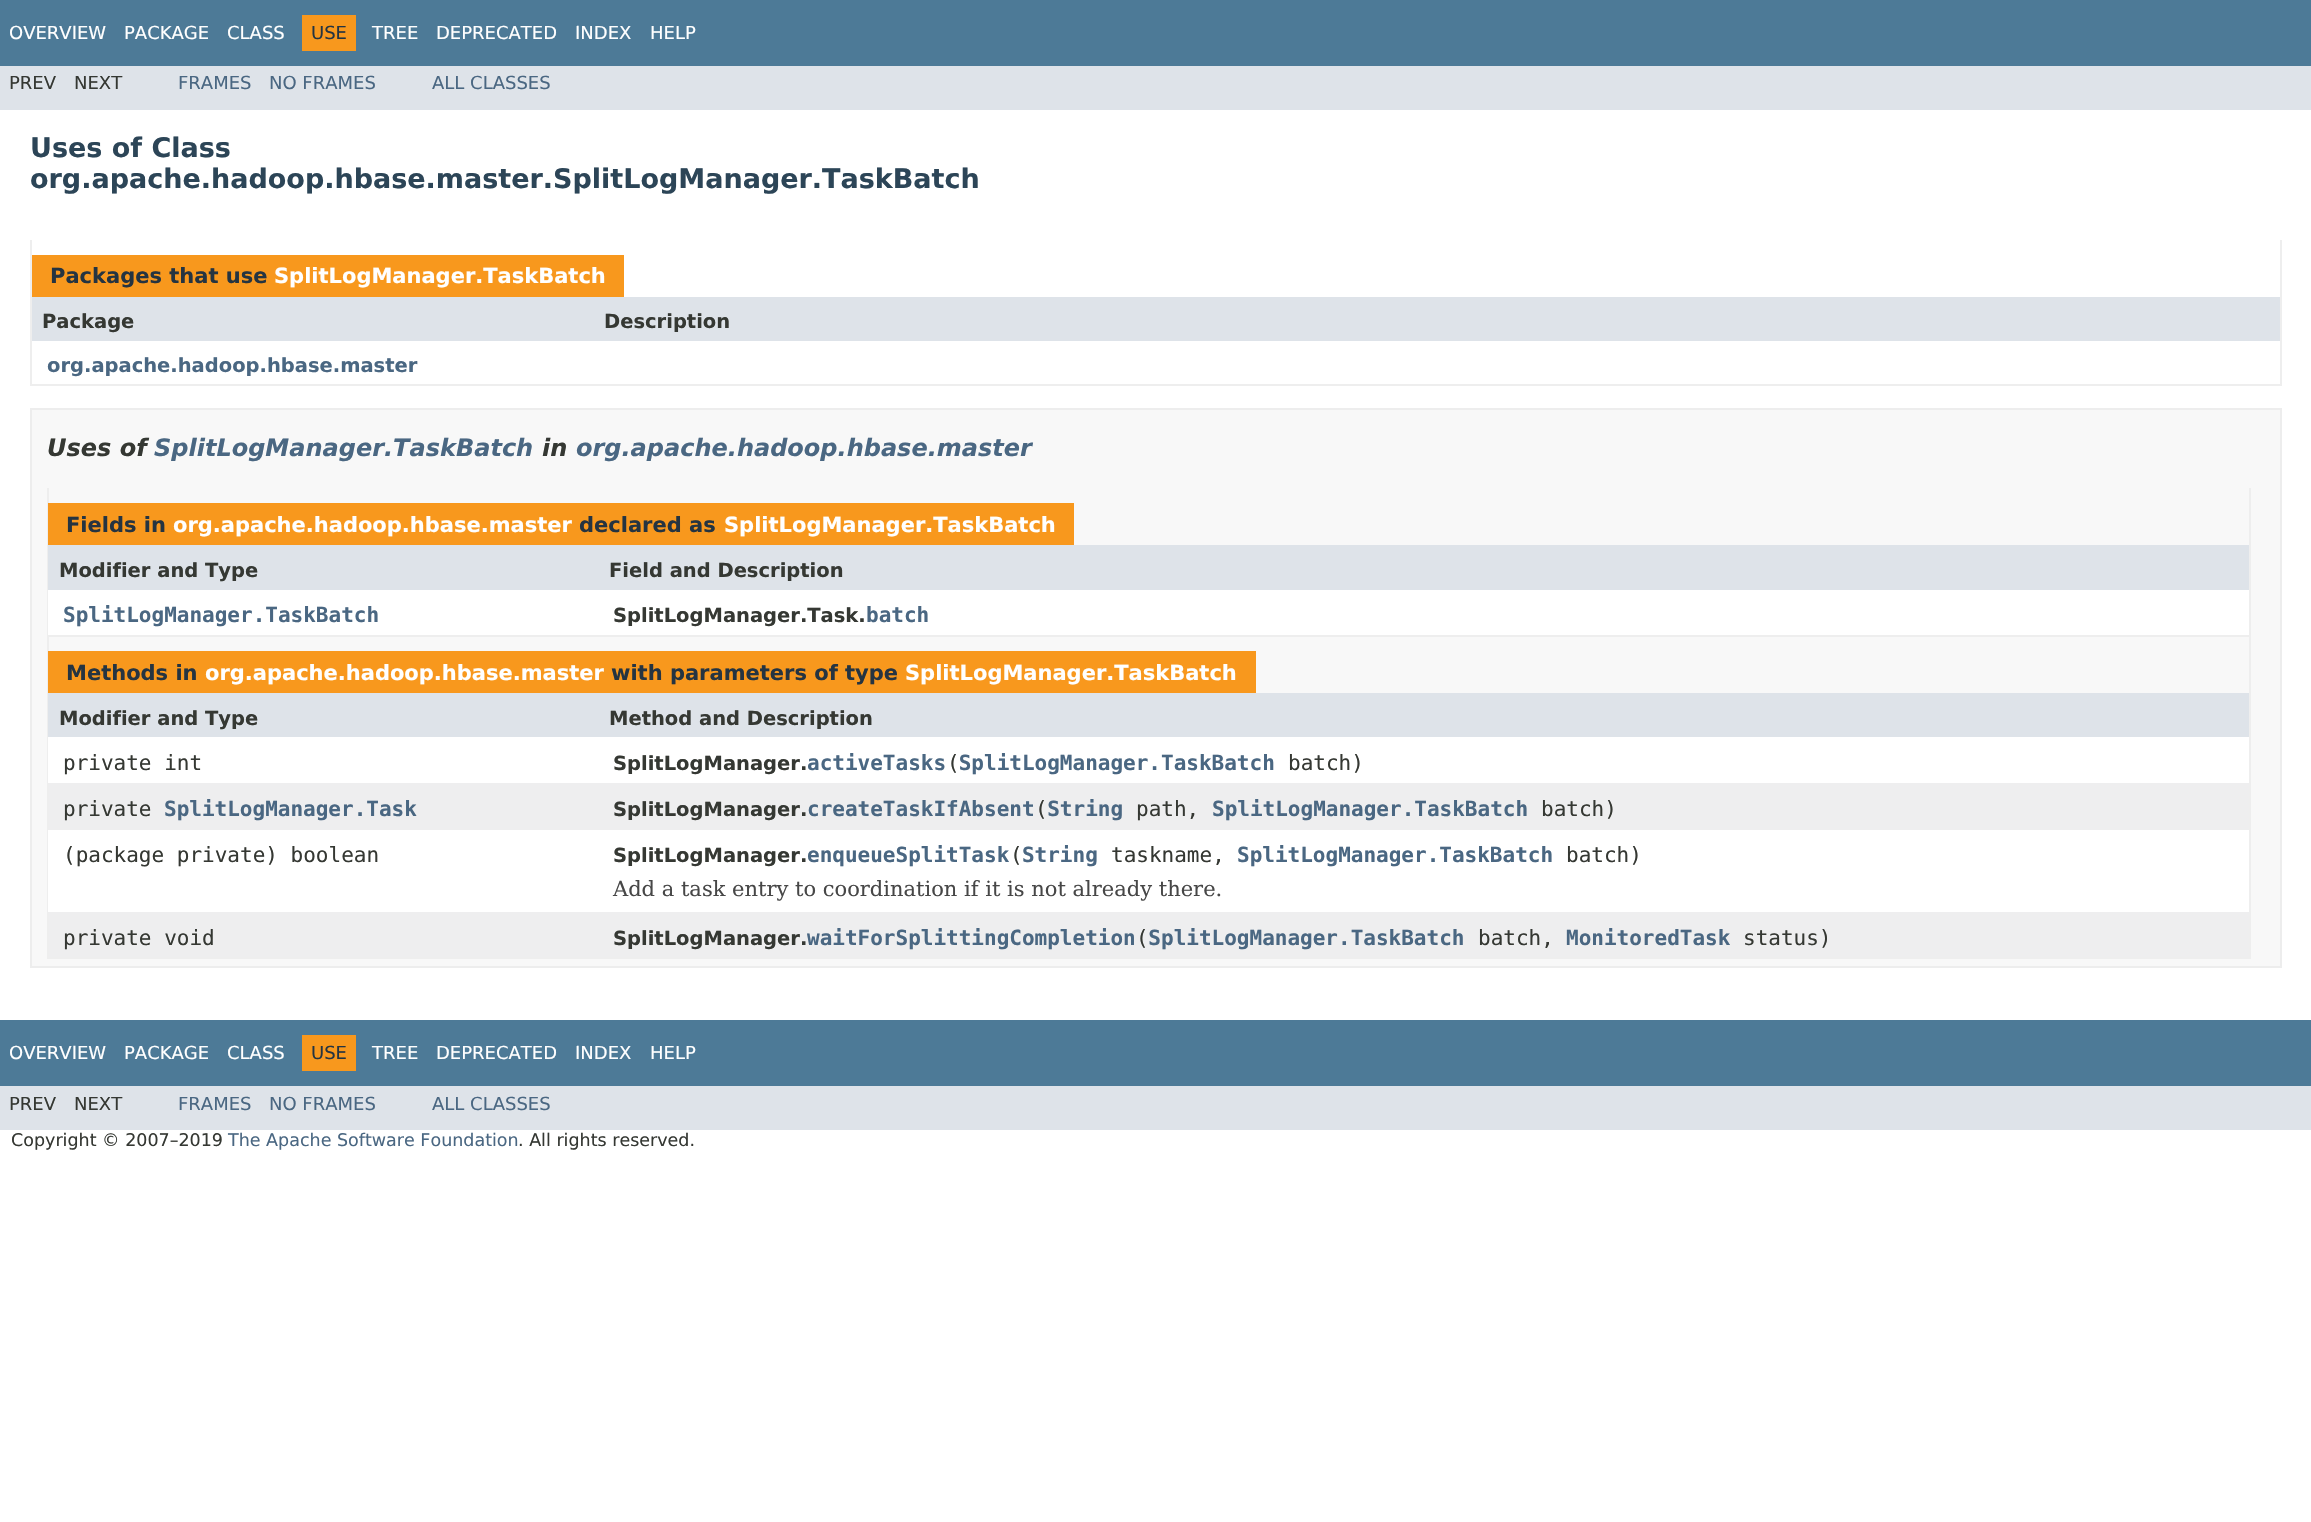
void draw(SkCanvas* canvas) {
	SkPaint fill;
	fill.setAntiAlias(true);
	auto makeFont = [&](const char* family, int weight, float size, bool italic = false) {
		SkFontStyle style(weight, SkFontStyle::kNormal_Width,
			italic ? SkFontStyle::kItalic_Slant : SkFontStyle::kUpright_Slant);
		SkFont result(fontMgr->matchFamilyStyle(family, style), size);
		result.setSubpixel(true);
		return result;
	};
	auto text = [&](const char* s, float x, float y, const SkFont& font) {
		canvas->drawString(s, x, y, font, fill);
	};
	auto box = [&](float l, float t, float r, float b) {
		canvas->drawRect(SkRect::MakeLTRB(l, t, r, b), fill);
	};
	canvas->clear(0xFFFFFFFF);
	fill.setColor(0xFF4D7A97);
	box(0, 0, 2311, 66);
	fill.setColor(0xFFF8981D);
	box(302, 15, 356, 51);
	fill.setColor(0xFFDEE3E9);
	box(0, 66, 2311, 110);
	fill.setColor(0xFFEEEEEE);
	box(2280, 240, 2282, 386);
	box(30, 384, 2282, 386);
	box(30, 240, 32, 386);
	fill.setColor(0xFFF8981D);
	box(32, 255, 624, 297);
	fill.setColor(0xFFDEE3E9);
	box(32, 297, 2280, 341);
	fill.setColor(0xFFF8F8F8);
	canvas->drawRect(SkRect::MakeLTRB(31, 409, 2281, 967), fill);
	fill.setStyle(SkPaint::kStroke_Style);
	fill.setStrokeWidth(2);
	fill.setColor(0xFFEDEDED);
	canvas->drawRect(SkRect::MakeLTRB(31, 409, 2281, 967), fill);
	fill.setStyle(SkPaint::kFill_Style);
	fill.setColor(0xFFEEEEEE);
	box(2249, 488, 2251, 636);
	box(47, 635, 2250, 637);
	box(47, 488, 49, 636);
	fill.setColor(0xFFF8981D);
	box(48, 503, 1074, 545);
	fill.setColor(0xFFDEE3E9);
	box(48, 545, 2249, 590);
	fill.setColor(0xFFFFFFFF);
	box(48, 590, 2249, 635);
	fill.setColor(0xFFEEEEEE);
	box(2249, 636, 2251, 959);
	box(47, 957, 2250, 959);
	box(47, 636, 49, 959);
	fill.setColor(0xFFF8981D);
	box(48, 651, 1256, 693);
	fill.setColor(0xFFDEE3E9);
	box(48, 693, 2249, 737);
	fill.setColor(0xFFFFFFFF);
	box(48, 737, 2249, 783);
	fill.setColor(0xFFEEEEEF);
	box(49, 783, 2249, 830);
	fill.setColor(0xFFFFFFFF);
	box(48, 830, 2249, 912);
	fill.setColor(0xFFEEEEEF);
	box(49, 912, 2249, 957);
	fill.setColor(0xFF4D7A97);
	box(0, 1020, 2311, 1086);
	fill.setColor(0xFFF8981D);
	box(302, 1035, 356, 1071);
	fill.setColor(0xFFDEE3E9);
	box(0, 1086, 2311, 1130);
	auto font1 = makeFont("DejaVu Sans", 400, 18);
	fill.setColor(0xFFFFFFFF);
	text("OVERVIEW", 9, 39, font1);
	text("PACKAGE", 124, 39, font1);
	text("CLASS", 227, 39, font1);
	fill.setColor(0xFF253441);
	text("USE", 311, 39, font1);
	fill.setColor(0xFFFFFFFF);
	text("TREE", 372, 39, font1);
	text("DEPRECATED", 436, 39, font1);
	text("INDEX", 575, 39, font1);
	text("HELP", 650, 39, font1);
	fill.setColor(0xFF353833);
	text("PREV", 9, 89, font1);
	text("NEXT", 74, 89, font1);
	fill.setColor(0xFF4A6782);
	text("FRAMES", 178, 89, font1);
	text("NO FRAMES", 269, 89, font1);
	text("ALL CLASSES", 432, 89, font1);
	auto font2 = makeFont("DejaVu Sans", 700, 27);
	fill.setColor(0xFF2C4557);
	text("Uses of Class", 30, 157, font2);
	text("org.apache.hadoop.hbase.master.SplitLogManager.TaskBatch", 30, 188, font2);
	auto font3 = makeFont("DejaVu Sans", 700, 21);
	fill.setColor(0xFF253441);
	text("Packages that use", 50, 283, font3);
	fill.setColor(0xFFFFFFFF);
	text("SplitLogManager.TaskBatch", 274, 283, font3);
	auto font4 = makeFont("DejaVu Sans", 700, 19.5f);
	fill.setColor(0xFF353833);
	text("Package", 42, 328, font4);
	text("Description", 604, 328, font4);
	fill.setColor(0xFF4A6782);
	text("org.apache.hadoop.hbase.master", 47, 372, font4);
	auto font5 = makeFont("DejaVu Sans", 700, 24, true);
	fill.setColor(0xFF353833);
	text("Uses of", 47, 456, font5);
	fill.setColor(0xFF4A6782);
	text("SplitLogManager.TaskBatch", 154, 456, font5);
	fill.setColor(0xFF353833);
	text("in", 542, 456, font5);
	fill.setColor(0xFF4A6782);
	text("org.apache.hadoop.hbase.master", 576, 456, font5);
	fill.setColor(0xFF253441);
	text("Fields in", 66, 532, font3);
	fill.setColor(0xFFFFFFFF);
	text("org.apache.hadoop.hbase.master", 173, 532, font3);
	fill.setColor(0xFF253441);
	text("declared as", 579, 532, font3);
	fill.setColor(0xFFFFFFFF);
	text("SplitLogManager.TaskBatch", 724, 532, font3);
	fill.setColor(0xFF353833);
	text("Modifier and Type", 59, 577, font4);
	text("Field and Description", 609, 577, font4);
	auto font6 = makeFont("DejaVu Sans Mono", 700, 21);
	fill.setColor(0xFF4A6782);
	text("SplitLogManager.TaskBatch", 63, 622, font6);
	fill.setColor(0xFF353833);
	text("SplitLogManager.Task.", 613, 622, font4);
	fill.setColor(0xFF4A6782);
	text("batch", 866, 622, font6);
	fill.setColor(0xFF253441);
	text("Methods in", 66, 680, font3);
	fill.setColor(0xFFFFFFFF);
	text("org.apache.hadoop.hbase.master", 205, 680, font3);
	fill.setColor(0xFF253441);
	text("with parameters of type", 611, 680, font3);
	fill.setColor(0xFFFFFFFF);
	text("SplitLogManager.TaskBatch", 905, 680, font3);
	fill.setColor(0xFF353833);
	text("Modifier and Type", 59, 725, font4);
	text("Method and Description", 609, 725, font4);
	auto font7 = makeFont("DejaVu Sans Mono", 400, 21);
	text("private int", 63, 770, font7);
	fill.setColor(0xFF4A6782);
	text("activeTasks SplitLogManager.TaskBatch", 807, 770, font6);
	fill.setColor(0xFF353833);
	text("SplitLogManager.", 613, 770, font4);
	text("(", 947, 770, font7);
	text("batch)", 1288, 770, font7);
	text("private", 63, 816, font7);
	fill.setColor(0xFF4A6782);
	text("SplitLogManager.Task", 164, 816, font6);
	text("createTaskIfAbsent String", 807, 816, font6);
	text("SplitLogManager.TaskBatch", 1212, 816, font6);
	fill.setColor(0xFF353833);
	text("SplitLogManager.", 613, 816, font4);
	text("(", 1035, 816, font7);
	text("path,", 1136, 816, font7);
	text("batch)", 1541, 816, font7);
	text("(package private) boolean", 63, 862, font7);
	fill.setColor(0xFF4A6782);
	text("enqueueSplitTask String", 807, 862, font6);
	text("SplitLogManager.TaskBatch", 1237, 862, font6);
	fill.setColor(0xFF353833);
	text("SplitLogManager.", 613, 862, font4);
	text("(", 1010, 862, font7);
	text("taskname,", 1111, 862, font7);
	text("batch)", 1566, 862, font7);
	auto font8 = makeFont("DejaVu Serif", 400, 21);
	fill.setColor(0xFF474747);
	text("Add a task entry to coordination if it is not already there.", 613, 896, font8);
	fill.setColor(0xFF353833);
	text("private void", 63, 945, font7);
	fill.setColor(0xFF4A6782);
	text("waitForSplittingCompletion SplitLogManager.TaskBatch", 807, 945, font6);
	text("MonitoredTask", 1566, 945, font6);
	fill.setColor(0xFF353833);
	text("SplitLogManager.", 613, 945, font4);
	text("(", 1136, 945, font7);
	text("batch,", 1478, 945, font7);
	text("status)", 1743, 945, font7);
	fill.setColor(0xFFFFFFFF);
	text("OVERVIEW", 9, 1059, font1);
	text("PACKAGE", 124, 1059, font1);
	text("CLASS", 227, 1059, font1);
	fill.setColor(0xFF253441);
	text("USE", 311, 1059, font1);
	fill.setColor(0xFFFFFFFF);
	text("TREE", 372, 1059, font1);
	text("DEPRECATED", 436, 1059, font1);
	text("INDEX", 575, 1059, font1);
	text("HELP", 650, 1059, font1);
	fill.setColor(0xFF353833);
	text("PREV", 9, 1110, font1);
	text("NEXT", 74, 1110, font1);
	fill.setColor(0xFF4A6782);
	text("FRAMES", 178, 1110, font1);
	text("NO FRAMES", 269, 1110, font1);
	text("ALL CLASSES", 432, 1110, font1);
	auto font9 = makeFont("DejaVu Sans", 400, 17.5f);
	fill.setColor(0xFF353833);
	text("Copyright © 2007–2019", 11, 1146, font9);
	fill.setColor(0xFF4A6782);
	text("The Apache Software Foundation", 228, 1146, font9);
	fill.setColor(0xFF353833);
	text(". All rights reserved.", 518, 1146, font9);
}
